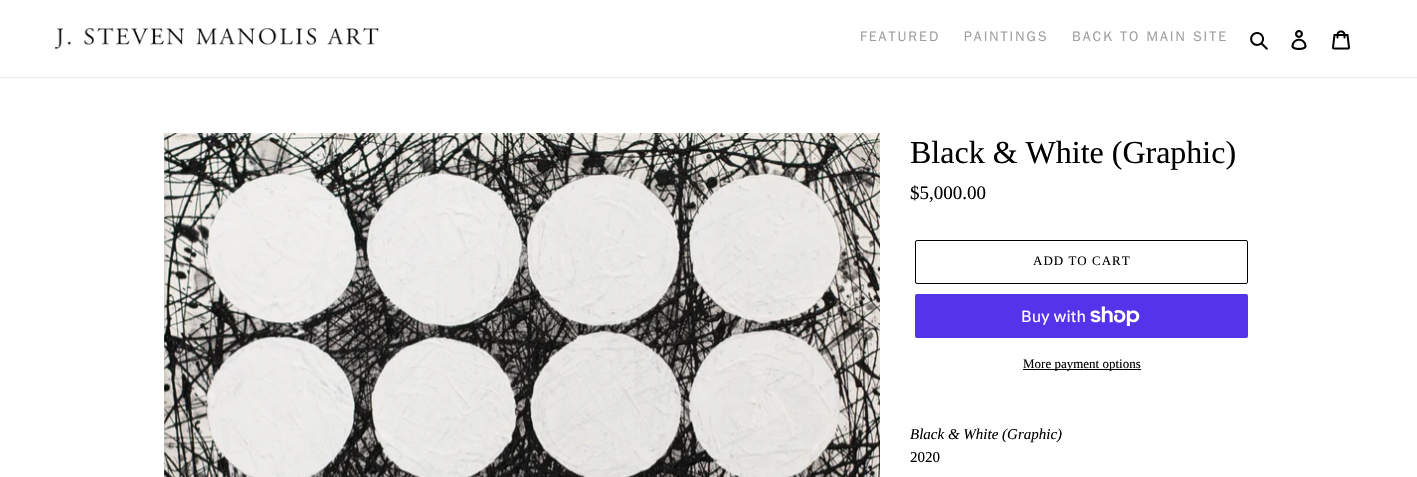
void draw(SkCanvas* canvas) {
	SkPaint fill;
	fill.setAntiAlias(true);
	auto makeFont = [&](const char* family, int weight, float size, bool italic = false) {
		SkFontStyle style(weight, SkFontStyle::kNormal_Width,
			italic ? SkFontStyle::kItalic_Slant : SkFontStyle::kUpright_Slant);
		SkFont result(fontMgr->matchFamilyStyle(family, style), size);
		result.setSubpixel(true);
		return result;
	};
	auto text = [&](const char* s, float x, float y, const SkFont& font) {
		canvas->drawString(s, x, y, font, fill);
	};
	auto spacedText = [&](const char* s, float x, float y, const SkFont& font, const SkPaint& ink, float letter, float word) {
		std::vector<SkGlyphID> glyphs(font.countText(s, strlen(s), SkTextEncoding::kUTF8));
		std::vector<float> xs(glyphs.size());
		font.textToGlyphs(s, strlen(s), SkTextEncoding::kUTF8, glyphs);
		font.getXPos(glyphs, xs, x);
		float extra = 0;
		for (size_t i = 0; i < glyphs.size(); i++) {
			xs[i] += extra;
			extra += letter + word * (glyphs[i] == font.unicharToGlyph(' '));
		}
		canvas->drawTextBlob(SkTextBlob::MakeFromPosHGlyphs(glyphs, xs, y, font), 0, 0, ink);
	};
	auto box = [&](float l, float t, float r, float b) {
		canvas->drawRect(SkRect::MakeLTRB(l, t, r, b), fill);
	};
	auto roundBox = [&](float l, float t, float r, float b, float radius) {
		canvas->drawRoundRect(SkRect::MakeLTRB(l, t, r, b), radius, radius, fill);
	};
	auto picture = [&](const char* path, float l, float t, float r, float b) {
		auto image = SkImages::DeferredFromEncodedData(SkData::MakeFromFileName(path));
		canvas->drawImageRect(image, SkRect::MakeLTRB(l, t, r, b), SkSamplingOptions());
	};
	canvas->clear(0xFFFFFFFF);
	fill.setColor(0xFFEBEBEB);
	box(0, 77, 1417, 78);
	picture("image0.png", 55, 28, 379, 49);
	picture("image1.png", 1250, 32, 1268, 50);
	picture("image2.png", 1291, 30, 1307, 50);
	picture("image3.png", 1332, 30, 1350, 50);
	picture("image4.png", 164, 133, 880, 477);
	fill.setStyle(SkPaint::kStroke_Style);
	fill.setStrokeWidth(1);
	fill.setColor(0xFF000000);
	canvas->drawRoundRect(SkRect::MakeLTRB(915.5f, 240.5f, 1247.5f, 283.5f), 1.5f, 1.5f, fill);
	fill.setStyle(SkPaint::kFill_Style);
	fill.setColor(0xFF5433EB);
	roundBox(915, 294, 1248, 338, 2);
	picture("image5.png", 1090, 306, 1140, 326);
	fill.setColor(0xFF000000);
	box(1023, 369, 1141, 370);
	auto font1 = makeFont("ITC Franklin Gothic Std", 400, 14);
	fill.setColor(0xFF9F9F9F);
	spacedText("FEATURED", 860, 41, font1, fill, 2, 0);
	spacedText("PAINTINGS", 964, 41, font1, fill, 2, 0);
	spacedText("BACK TO MAIN SITE", 1072, 41, font1, fill, 2, 0);
	auto font2 = makeFont("Liberation Serif", 400, 32);
	fill.setColor(0xFF000000);
	text("Black & White (Graphic)", 910, 163, font2);
	auto font3 = makeFont("Liberation Serif", 400, 19);
	text("$5,000.00", 910, 199, font3);
	auto font4 = makeFont("Liberation Serif", 400, 13);
	spacedText("ADD TO CART", 1033, 265, font4, fill, 1, 0);
	auto font5 = makeFont("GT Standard", 400, 16);
	fill.setColor(0xFFFFFFFF);
	text("Buy with", 1021, 322, font5);
	fill.setColor(0xFF000000);
	text("More payment options", 1023, 368, font4);
	auto font6 = makeFont("Liberation Serif", 400, 15, true);
	text("Black & White (Graphic)", 910, 439, font6);
	auto font7 = makeFont("Liberation Serif", 400, 15);
	text("2020", 910, 462, font7);
}
